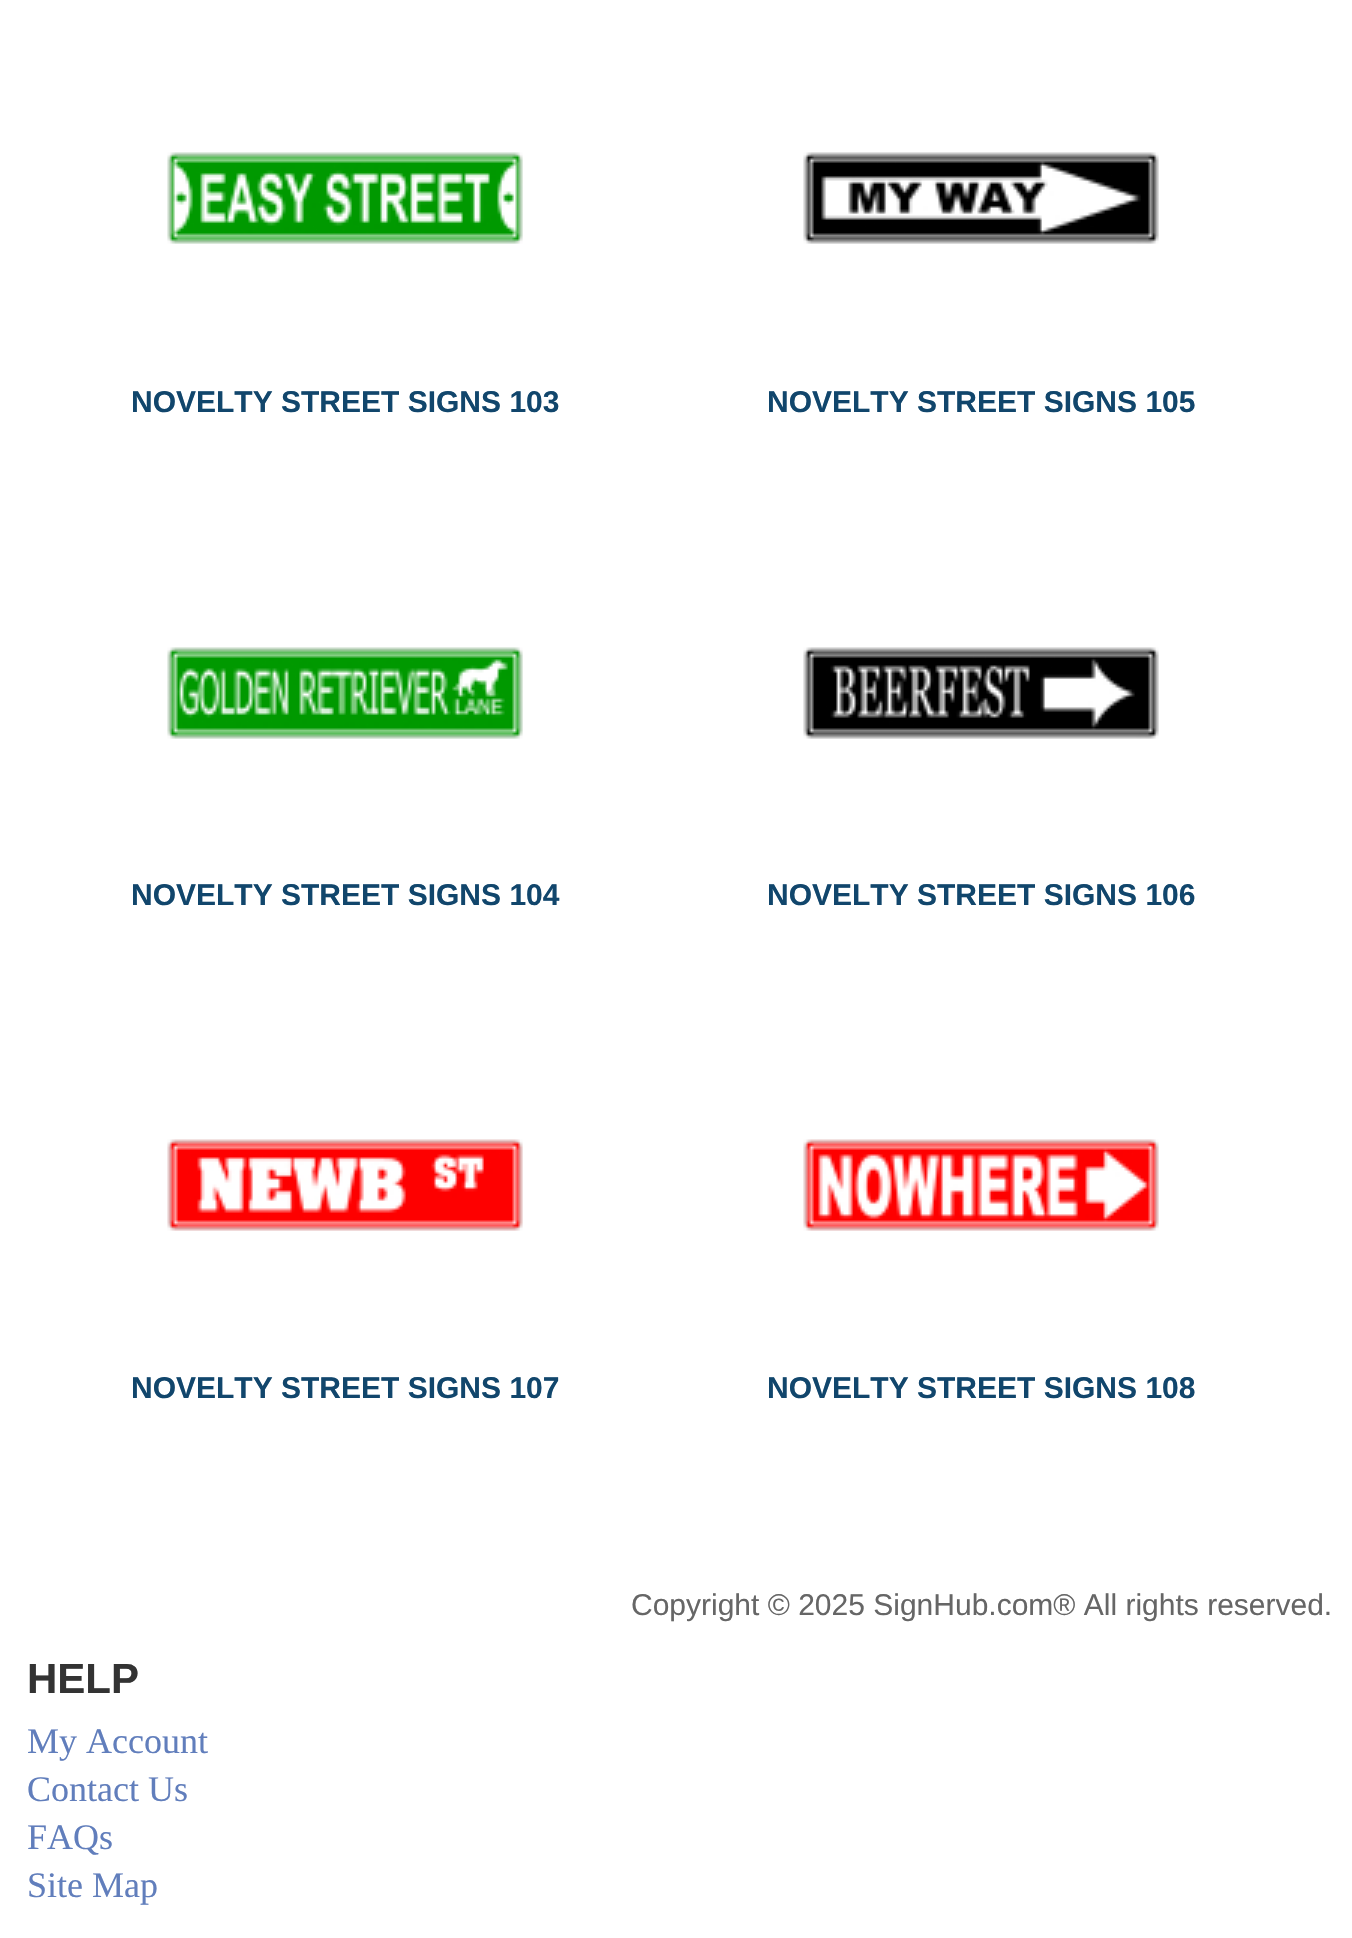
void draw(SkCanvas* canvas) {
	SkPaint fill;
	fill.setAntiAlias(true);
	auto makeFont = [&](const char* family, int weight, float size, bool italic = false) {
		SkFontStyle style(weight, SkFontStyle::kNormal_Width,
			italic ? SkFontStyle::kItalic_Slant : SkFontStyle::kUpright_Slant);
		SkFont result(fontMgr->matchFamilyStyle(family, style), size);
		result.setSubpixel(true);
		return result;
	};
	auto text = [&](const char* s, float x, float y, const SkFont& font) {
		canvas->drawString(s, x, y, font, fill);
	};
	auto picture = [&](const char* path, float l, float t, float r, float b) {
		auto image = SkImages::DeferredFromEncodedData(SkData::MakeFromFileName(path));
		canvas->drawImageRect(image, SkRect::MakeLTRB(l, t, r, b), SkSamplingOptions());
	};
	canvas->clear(0xFFFFFFFF);
	picture("image0.png", 167, 152, 523, 244);
	picture("image1.png", 803, 152, 1159, 244);
	picture("image2.png", 167, 647, 523, 739);
	picture("image3.png", 803, 647, 1159, 739);
	picture("image4.png", 167, 1139, 523, 1231);
	picture("image5.png", 803, 1139, 1159, 1231);
	auto font1 = makeFont("Liberation Sans", 700, 30);
	fill.setColor(0xFF11466C);
	text("NOVELTY STREET SIGNS 103", 131, 412, font1);
	text("NOVELTY STREET SIGNS 105", 767, 412, font1);
	text("NOVELTY STREET SIGNS 104", 131, 905, font1);
	text("NOVELTY STREET SIGNS 106", 767, 905, font1);
	text("NOVELTY STREET SIGNS 107", 131, 1398, font1);
	text("NOVELTY STREET SIGNS 108", 767, 1398, font1);
	auto font2 = makeFont("Liberation Sans", 400, 30);
	fill.setColor(0xFF666666);
	text("Copyright © 2025 SignHub.com® All rights reserved.", 631, 1615, font2);
	auto font3 = makeFont("Liberation Sans", 700, 42);
	fill.setColor(0xFF333333);
	text("HELP", 27, 1693, font3);
	auto font4 = makeFont("Liberation Serif", 400, 36);
	fill.setColor(0xFF617EBC);
	text("My Account", 27, 1753, font4);
	text("Contact Us", 27, 1801, font4);
	text("FAQs", 27, 1849, font4);
	text("Site Map", 27, 1897, font4);
}
